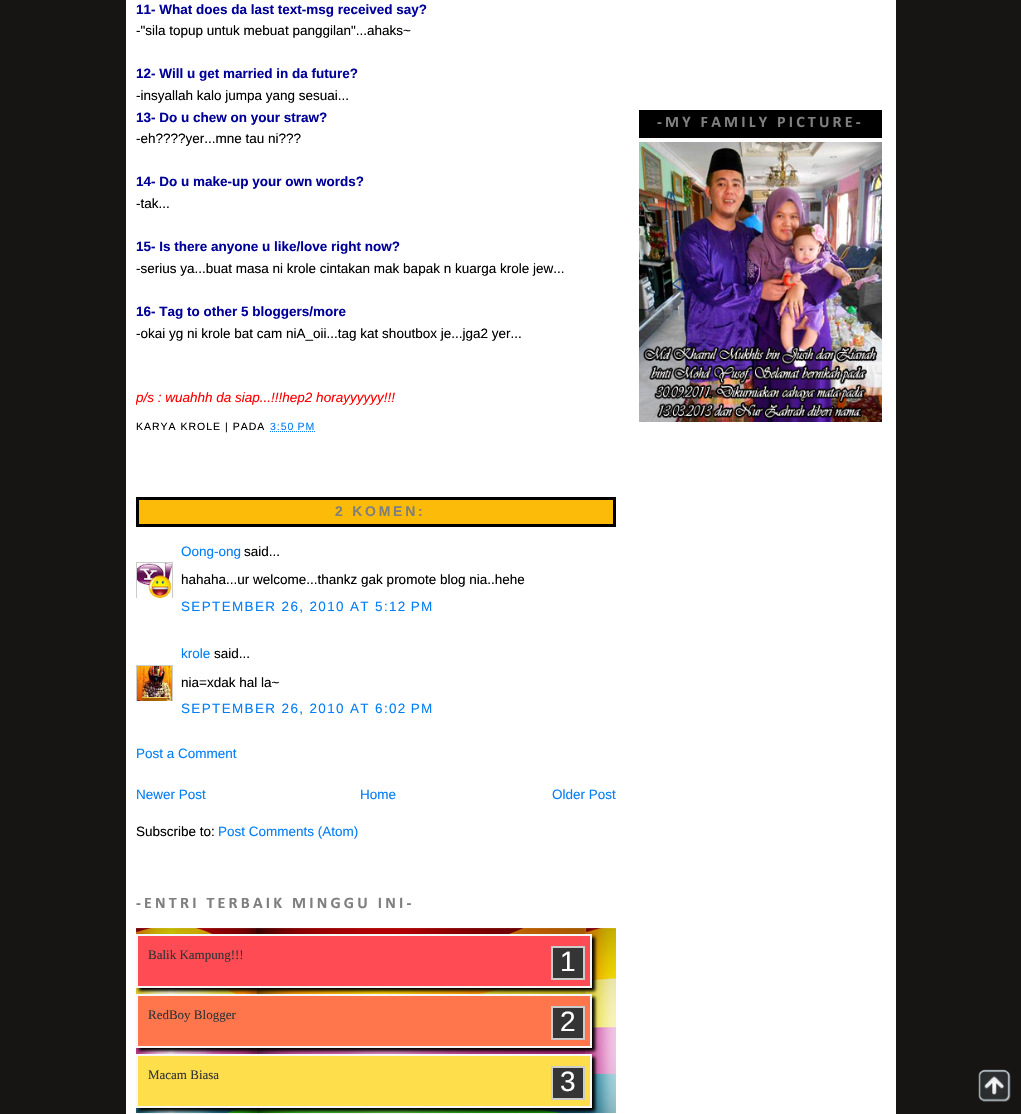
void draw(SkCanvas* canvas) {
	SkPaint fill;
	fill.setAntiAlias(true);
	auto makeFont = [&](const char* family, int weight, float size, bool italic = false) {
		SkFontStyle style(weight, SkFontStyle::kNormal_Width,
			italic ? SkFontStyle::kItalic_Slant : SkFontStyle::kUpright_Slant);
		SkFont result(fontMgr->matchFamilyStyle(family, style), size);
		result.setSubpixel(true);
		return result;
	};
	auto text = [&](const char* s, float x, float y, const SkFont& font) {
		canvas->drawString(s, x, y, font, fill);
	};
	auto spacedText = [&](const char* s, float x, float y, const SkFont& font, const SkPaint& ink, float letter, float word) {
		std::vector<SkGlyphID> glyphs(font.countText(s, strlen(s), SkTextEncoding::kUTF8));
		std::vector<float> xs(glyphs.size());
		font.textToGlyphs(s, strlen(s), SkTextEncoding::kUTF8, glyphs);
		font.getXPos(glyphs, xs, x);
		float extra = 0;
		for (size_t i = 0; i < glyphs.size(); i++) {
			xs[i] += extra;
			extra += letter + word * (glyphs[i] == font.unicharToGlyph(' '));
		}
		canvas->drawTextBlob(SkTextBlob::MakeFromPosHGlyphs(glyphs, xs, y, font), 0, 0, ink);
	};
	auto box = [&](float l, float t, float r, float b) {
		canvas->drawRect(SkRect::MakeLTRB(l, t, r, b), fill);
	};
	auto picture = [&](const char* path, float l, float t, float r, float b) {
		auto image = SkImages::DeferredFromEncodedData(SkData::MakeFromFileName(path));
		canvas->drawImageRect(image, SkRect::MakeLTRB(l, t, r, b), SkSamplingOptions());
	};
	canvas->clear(0xFF171414);
	fill.setColor(0xFFFFFFFF);
	box(126, 0, 896, 1114);
	fill.setStyle(SkPaint::kStroke_Style);
	fill.setStrokeWidth(1);
	fill.setColor(0xFF047EF4);
	fill.setPathEffect(SkDashPathEffect::Make({{1, 1}}, 0));
	canvas->drawPath(SkPathBuilder().moveTo(270, 431.5f).lineTo(315.5f, 431.5f).detach(), fill);
	fill.setPathEffect(nullptr);
	fill.setStyle(SkPaint::kFill_Style);
	fill.setColor(0xFFFCBB08);
	canvas->drawRect(SkRect::MakeLTRB(137.5f, 498.5f, 614.5f, 525.5f), fill);
	fill.setStyle(SkPaint::kStroke_Style);
	fill.setStrokeWidth(3);
	fill.setColor(0xFF000000);
	canvas->drawRect(SkRect::MakeLTRB(137.5f, 498.5f, 614.5f, 525.5f), fill);
	canvas->save();
	canvas->clipRect(SkRect::MakeLTRB(136, 562, 173, 598));
	fill.setStrokeWidth(1);
	fill.setColor(0xFFCCCCCC);
	canvas->drawRect(SkRect::MakeLTRB(136.5f, 562.5f, 172.5f, 598.5f), fill);
	canvas->restore();
	picture("image0.png", 137, 563, 172, 598);
	canvas->save();
	canvas->clipRect(SkRect::MakeLTRB(136, 665, 173, 701));
	canvas->drawRect(SkRect::MakeLTRB(136.5f, 665.5f, 172.5f, 701.5f), fill);
	canvas->restore();
	picture("image1.png", 137, 666, 172, 701);
	picture("image2.png", 136, 928, 616, 1113);
	fill.setStyle(SkPaint::kFill_Style);
	fill.setColor(0xFF000000);
	fill.setMaskFilter(SkMaskFilter::MakeBlur(kNormal_SkBlurStyle, 1.5f));
	canvas->drawRect(SkRect::MakeLTRB(139, 937, 595, 991), fill);
	fill.setMaskFilter(nullptr);
	fill.setColor(0xFFFF4C54);
	canvas->drawRect(SkRect::MakeLTRB(137, 935, 591, 987), fill);
	fill.setStyle(SkPaint::kStroke_Style);
	fill.setStrokeWidth(2);
	fill.setColor(0xFFF7F7F7);
	canvas->drawRect(SkRect::MakeLTRB(137, 935, 591, 987), fill);
	fill.setStyle(SkPaint::kFill_Style);
	fill.setColor(0xFF353535);
	canvas->drawRect(SkRect::MakeLTRB(552, 947, 584, 979), fill);
	fill.setStyle(SkPaint::kStroke_Style);
	fill.setColor(0xFFCCCCCC);
	canvas->drawRect(SkRect::MakeLTRB(552, 947, 584, 979), fill);
	fill.setStyle(SkPaint::kFill_Style);
	fill.setColor(0xFF000000);
	fill.setMaskFilter(SkMaskFilter::MakeBlur(kNormal_SkBlurStyle, 1.5f));
	canvas->drawRect(SkRect::MakeLTRB(139, 997, 595, 1051), fill);
	fill.setMaskFilter(nullptr);
	fill.setColor(0xFFFF764C);
	canvas->drawRect(SkRect::MakeLTRB(137, 995, 591, 1047), fill);
	fill.setStyle(SkPaint::kStroke_Style);
	fill.setColor(0xFFF7F7F7);
	canvas->drawRect(SkRect::MakeLTRB(137, 995, 591, 1047), fill);
	fill.setStyle(SkPaint::kFill_Style);
	fill.setColor(0xFF353535);
	canvas->drawRect(SkRect::MakeLTRB(552, 1007, 584, 1039), fill);
	fill.setStyle(SkPaint::kStroke_Style);
	fill.setColor(0xFFCCCCCC);
	canvas->drawRect(SkRect::MakeLTRB(552, 1007, 584, 1039), fill);
	fill.setStyle(SkPaint::kFill_Style);
	fill.setColor(0xFF000000);
	fill.setMaskFilter(SkMaskFilter::MakeBlur(kNormal_SkBlurStyle, 1.5f));
	canvas->drawRect(SkRect::MakeLTRB(139, 1057, 595, 1111), fill);
	fill.setMaskFilter(nullptr);
	fill.setColor(0xFFFFDE4C);
	canvas->drawRect(SkRect::MakeLTRB(137, 1055, 591, 1107), fill);
	fill.setStyle(SkPaint::kStroke_Style);
	fill.setColor(0xFFF7F7F7);
	canvas->drawRect(SkRect::MakeLTRB(137, 1055, 591, 1107), fill);
	fill.setStyle(SkPaint::kFill_Style);
	fill.setColor(0xFF353535);
	canvas->drawRect(SkRect::MakeLTRB(552, 1067, 584, 1099), fill);
	fill.setStyle(SkPaint::kStroke_Style);
	fill.setColor(0xFFCCCCCC);
	canvas->drawRect(SkRect::MakeLTRB(552, 1067, 584, 1099), fill);
	fill.setStyle(SkPaint::kFill_Style);
	fill.setColor(0xFF000000);
	box(639, 110, 882, 138);
	picture("image3.png", 639, 142, 882, 422);
	picture("image4.png", 978, 1069, 1011, 1102);
	auto font1 = makeFont("Liberation Sans", 700, 13.5f);
	fill.setColor(0xFF000099);
	text("11- What does da last text-msg received say?", 136, 14, font1);
	auto font2 = makeFont("Liberation Sans", 400, 13.5f);
	fill.setColor(0xFF000000);
	text("-\"sila topup untuk mebuat panggilan\"...ahaks~", 136, 35, font2);
	fill.setColor(0xFF000099);
	text("12- Will u get married in da future?", 136, 78, font1);
	fill.setColor(0xFF000000);
	text("-insyallah kalo jumpa yang sesuai...", 136, 100, font2);
	fill.setColor(0xFF000099);
	text("13- Do u chew on your straw?", 136, 122, font1);
	fill.setColor(0xFF000000);
	text("-eh?\077?\077yer...mne tau ni?\077?", 136, 143, font2);
	fill.setColor(0xFF000099);
	text("14- Do u make-up your own words?", 136, 186, font1);
	fill.setColor(0xFF000000);
	text("-tak...", 136, 208, font2);
	fill.setColor(0xFF000099);
	text("15- Is there anyone u like/love right now?", 136, 251, font1);
	fill.setColor(0xFF000000);
	text("-serius ya...buat masa ni krole cintakan mak bapak n kuarga krole jew...", 136, 273, font2);
	fill.setColor(0xFF000099);
	text("16- Tag to other 5 bloggers/more", 136, 316, font1);
	fill.setColor(0xFF000000);
	text("-okai yg ni krole bat cam niA_oii...tag kat shoutbox je...jga2 yer...", 136, 338, font2);
	canvas->save();
	canvas->clipRect(SkRect::MakeLTRB(136, 0, 616, 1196));
	auto font3 = makeFont("Liberation Sans", 400, 13.5f, true);
	fill.setColor(0xFFFF0000);
	text("p/s : wuahhh da siap...!!!hep2 horayyyyyy!!!", 136, 402, font3);
	canvas->restore();
	auto font4 = makeFont("Liberation Sans", 400, 10.5f);
	fill.setColor(0xFF000000);
	spacedText("KARYA KROLE | PADA", 136, 430, font4, fill, 1, 0);
	fill.setColor(0xFF047EF4);
	spacedText("3:50 PM", 270, 430, font4, fill, 1, 0);
	auto font5 = makeFont("Liberation Sans", 700, 14);
	fill.setColor(0xFF7F7F7F);
	spacedText("2 KOMEN:", 335, 516, font5, fill, 2.75f, 0);
	fill.setColor(0xFF047EF4);
	text("Oong-ong", 181, 556, font2);
	fill.setColor(0xFF000000);
	text("said...", 244, 556, font2);
	text("hahaha...ur welcome...thankz gak promote blog nia..hehe", 181, 584, font2);
	fill.setColor(0xFF047EF4);
	spacedText("SEPTEMBER 26, 2010 AT 5:12 PM", 181, 611, font2, fill, 1.35f, 0);
	text("krole", 181, 658, font2);
	fill.setColor(0xFF000000);
	text("said...", 214, 658, font2);
	text("nia=xdak hal la~", 181, 687, font2);
	fill.setColor(0xFF047EF4);
	spacedText("SEPTEMBER 26, 2010 AT 6:02 PM", 181, 713, font2, fill, 1.35f, 0);
	text("Post a Comment", 136, 758, font2);
	text("Newer Post", 136, 799, font2);
	text("Home", 360, 799, font2);
	text("Older Post", 552, 799, font2);
	fill.setColor(0xFF000000);
	text("Subscribe to:", 136, 836, font2);
	fill.setColor(0xFF047EF4);
	text("Post Comments (Atom)", 218, 836, font2);
	auto font6 = makeFont("Calibri", 700, 16);
	fill.setColor(0xFF7F7F7F);
	spacedText("-ENTRI TERBAIK MINGGU INI-", 136, 908, font6, fill, 3.2f, 0);
	auto font7 = makeFont("Liberation Serif", 400, 13);
	fill.setColor(0xFF333333);
	text("Balik Kampung!!!", 148, 959, font7);
	auto font8 = makeFont("Liberation Sans", 400, 28);
	fill.setColor(0xFFFFFFFF);
	text("1", 560, 971, font8);
	fill.setColor(0xFF333333);
	text("RedBoy Blogger", 148, 1019, font7);
	fill.setColor(0xFFFFFFFF);
	text("2", 560, 1031, font8);
	fill.setColor(0xFF333333);
	text("Macam Biasa", 148, 1079, font7);
	fill.setColor(0xFFFFFFFF);
	text("3", 560, 1091, font8);
	fill.setColor(0xFF7F7F7F);
	spacedText("-MY FAMILY PICTURE-", 657, 127, font6, fill, 3.2f, 0);
}
